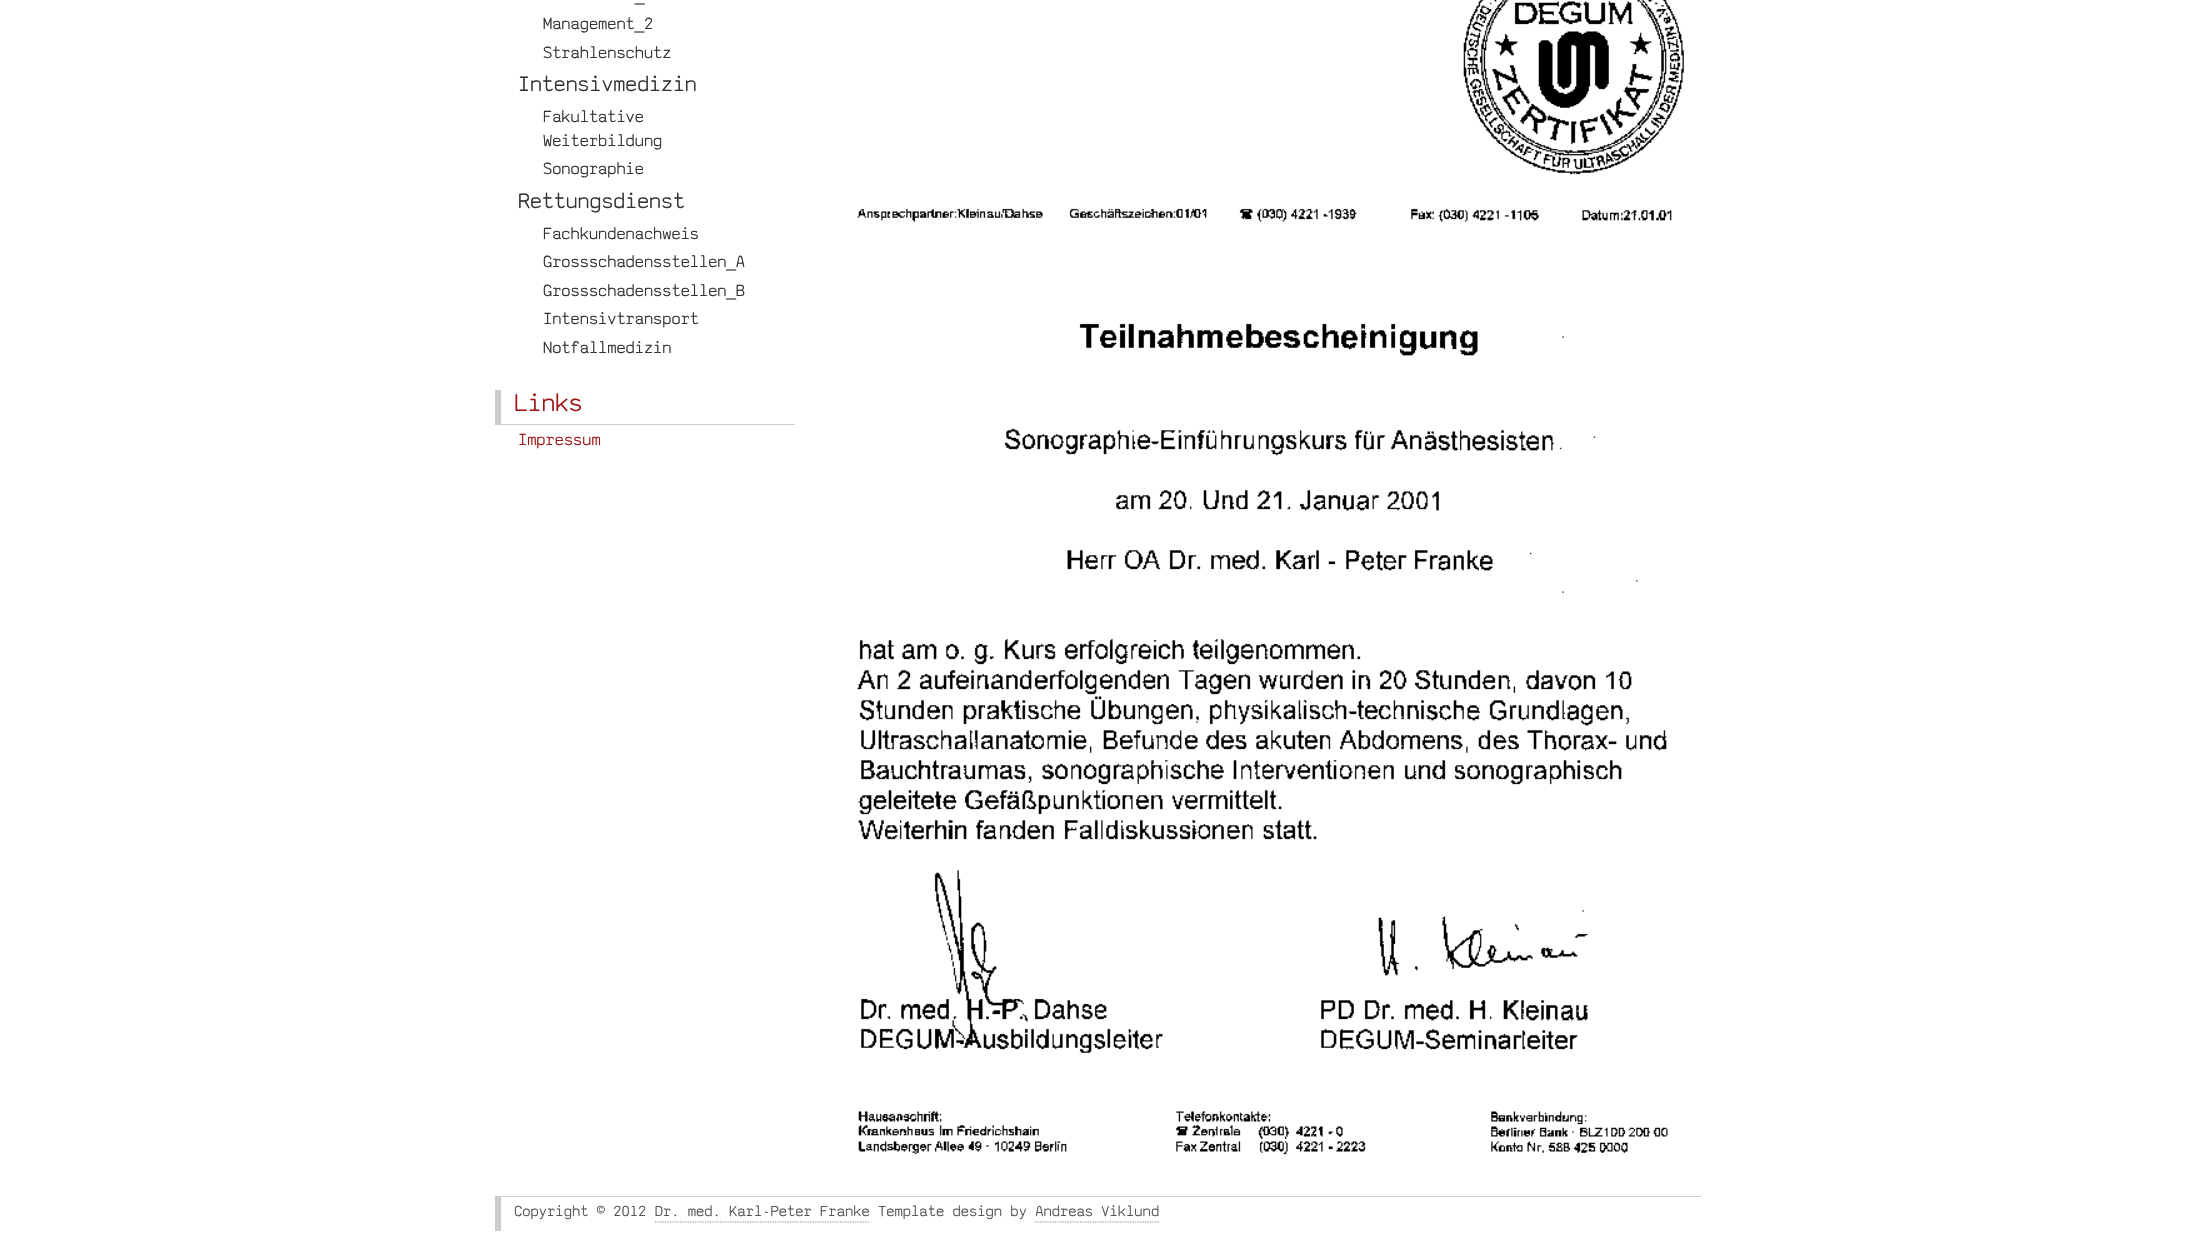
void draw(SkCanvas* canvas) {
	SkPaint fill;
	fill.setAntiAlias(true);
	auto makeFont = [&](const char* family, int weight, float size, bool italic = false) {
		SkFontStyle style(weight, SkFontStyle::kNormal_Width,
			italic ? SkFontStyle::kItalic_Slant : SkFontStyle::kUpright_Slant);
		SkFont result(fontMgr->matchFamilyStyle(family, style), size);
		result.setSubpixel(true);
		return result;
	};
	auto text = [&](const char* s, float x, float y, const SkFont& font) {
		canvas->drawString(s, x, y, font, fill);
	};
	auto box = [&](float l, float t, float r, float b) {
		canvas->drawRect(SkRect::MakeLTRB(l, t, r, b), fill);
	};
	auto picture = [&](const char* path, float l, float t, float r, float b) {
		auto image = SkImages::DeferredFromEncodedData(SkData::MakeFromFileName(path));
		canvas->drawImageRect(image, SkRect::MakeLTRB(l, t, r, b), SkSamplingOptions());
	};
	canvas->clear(0xFFFFFFFF);
	fill.setColor(0xFFCCCCCC);
	box(495, 424, 795, 425);
	box(495, 390, 501, 425);
	picture("image0.png", 857, 0, 1684, 1155);
	box(495, 1196, 1701, 1197);
	box(495, 1196, 501, 1231);
	fill.setStyle(SkPaint::kStroke_Style);
	fill.setStrokeWidth(1.2f);
	fill.setColor(0xFF888888);
	fill.setPathEffect(SkDashPathEffect::Make({{1.25f, 1.25f}}, 0));
	canvas->drawPath(SkPathBuilder().moveTo(655, 1222).lineTo(870, 1222).detach(), fill);
	fill.setPathEffect(nullptr);
	fill.setPathEffect(SkDashPathEffect::Make({{1.25f, 1.25f}}, 0));
	canvas->drawPath(SkPathBuilder().moveTo(1035, 1222).lineTo(1159, 1222).detach(), fill);
	fill.setPathEffect(nullptr);
	auto font1 = makeFont("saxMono", 400, 16.75f);
	fill.setStyle(SkPaint::kFill_Style);
	fill.setColor(0xFF333333);
	text("_", 635, 1, font1);
	text("Management_2", 543, 29, font1);
	text("Strahlenschutz", 543, 58, font1);
	auto font2 = makeFont("saxMono", 400, 21.75f);
	text("Intensivmedizin", 518, 91, font2);
	text("Fakultative", 543, 122, font1);
	text("Weiterbildung", 543, 146, font1);
	text("Sonographie", 543, 174, font1);
	text("Rettungsdienst", 518, 208, font2);
	text("Fachkundenachweis", 543, 239, font1);
	text("Grossschadensstellen_A", 543, 267, font1);
	text("Grossschadensstellen_B", 543, 296, font1);
	text("Intensivtransport", 543, 324, font1);
	text("Notfallmedizin", 543, 353, font1);
	auto font3 = makeFont("saxMono", 400, 25);
	fill.setColor(0xFF9E1616);
	text("Links", 514, 411, font3);
	text("Impressum", 518, 445, font1);
	auto font4 = makeFont("saxMono", 400, 15.1f);
	fill.setColor(0xFF555555);
	text("Copyright © 2012 Dr. med. Karl-Peter Franke", 514, 1216, font4);
	text("Template design by Andreas Viklund", 878, 1216, font4);
}
